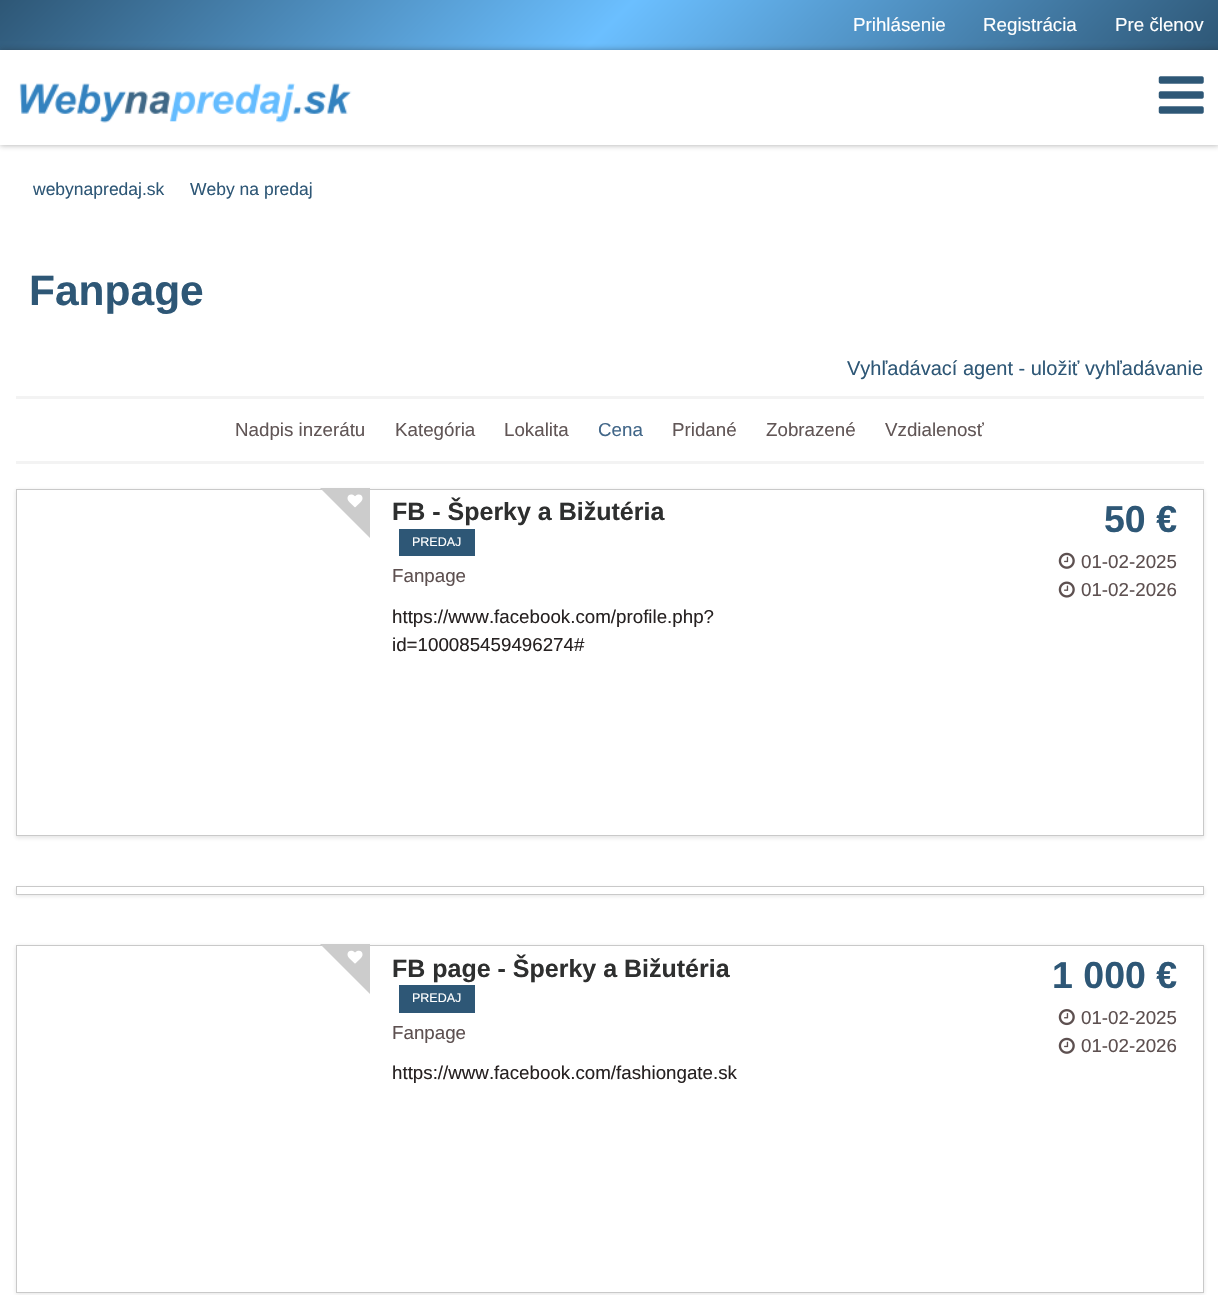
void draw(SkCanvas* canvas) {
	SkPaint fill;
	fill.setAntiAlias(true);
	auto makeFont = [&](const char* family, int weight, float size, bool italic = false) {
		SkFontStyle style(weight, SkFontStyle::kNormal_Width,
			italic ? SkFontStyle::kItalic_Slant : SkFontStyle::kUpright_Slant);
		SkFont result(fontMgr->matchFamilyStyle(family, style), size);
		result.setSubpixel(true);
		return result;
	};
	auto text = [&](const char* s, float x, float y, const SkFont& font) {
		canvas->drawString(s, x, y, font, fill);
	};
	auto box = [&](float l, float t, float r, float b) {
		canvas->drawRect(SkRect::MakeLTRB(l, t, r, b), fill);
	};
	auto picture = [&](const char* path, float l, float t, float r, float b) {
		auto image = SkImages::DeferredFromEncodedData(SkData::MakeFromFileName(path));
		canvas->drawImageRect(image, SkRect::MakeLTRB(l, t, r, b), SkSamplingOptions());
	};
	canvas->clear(0xFFFFFFFF);
	{
		const SkColor colors[] = {0xFF2E5776, 0xFF6BBFFF, 0xFF2E5776};
		const float stops[] = {0, 0.5f, 1};
		const SkPoint ends[] = {{292, -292}, {927, 342}};
		fill.setShader(SkGradientShader::MakeLinear(ends, colors, stops, 3, SkTileMode::kClamp));
		fill.setAlpha(255);
	}
	box(0, 0, 1218, 50);
	canvas->save();
	canvas->clipPath(SkPathBuilder(SkPathFillType::kEvenOdd).moveTo(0, 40).lineTo(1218, 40).lineTo(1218, 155).lineTo(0, 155).close().moveTo(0, 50).lineTo(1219, 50).lineTo(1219, 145).lineTo(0, 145).close().detach(), true);
	fill.setShader(nullptr);
	fill.setColor(0x63222222);
	fill.setMaskFilter(SkMaskFilter::MakeBlur(kNormal_SkBlurStyle, 3));
	canvas->drawRect(SkRect::MakeLTRB(0, 50, 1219, 145), fill);
	fill.setMaskFilter(nullptr);
	canvas->restore();
	picture("image0.png", 19, 83, 352, 123);
	picture("image1.png", 1158, 76, 1204, 114);
	fill.setColor(0xFFF3F3F3);
	box(16, 396, 1204, 399);
	box(16, 461, 1204, 464);
	fill.setColor(0x1F222222);
	fill.setMaskFilter(SkMaskFilter::MakeBlur(kNormal_SkBlurStyle, 2));
	canvas->drawRect(SkRect::MakeLTRB(16, 490, 1204, 838), fill);
	fill.setMaskFilter(nullptr);
	fill.setColor(0xFFFFFFFF);
	canvas->drawRect(SkRect::MakeLTRB(16.5f, 489.5f, 1203.5f, 835.5f), fill);
	fill.setStyle(SkPaint::kStroke_Style);
	fill.setStrokeWidth(1);
	fill.setColor(0xFFC9C9C9);
	canvas->drawRect(SkRect::MakeLTRB(16.5f, 489.5f, 1203.5f, 835.5f), fill);
	fill.setStyle(SkPaint::kFill_Style);
	fill.setColor(0xFFCCCCCC);
	canvas->drawPath(SkPathBuilder().moveTo(320, 488).lineTo(370, 488).lineTo(370, 538).close().detach(), fill);
	picture("image2.png", 347, 494, 363, 508);
	fill.setColor(0xFF2E5776);
	box(399, 529, 475, 556);
	picture("image3.png", 1058, 552, 1075, 569);
	picture("image4.png", 1058, 581, 1075, 598);
	fill.setColor(0x1F222222);
	fill.setMaskFilter(SkMaskFilter::MakeBlur(kNormal_SkBlurStyle, 2));
	canvas->drawRect(SkRect::MakeLTRB(16, 888, 1204, 896), fill);
	fill.setMaskFilter(nullptr);
	fill.setColor(0xFFFFFFFF);
	canvas->drawRect(SkRect::MakeLTRB(16.5f, 886.5f, 1203.5f, 894.5f), fill);
	fill.setStyle(SkPaint::kStroke_Style);
	fill.setColor(0xFFC9C9C9);
	canvas->drawRect(SkRect::MakeLTRB(16.5f, 886.5f, 1203.5f, 894.5f), fill);
	fill.setStyle(SkPaint::kFill_Style);
	fill.setColor(0x1F222222);
	fill.setMaskFilter(SkMaskFilter::MakeBlur(kNormal_SkBlurStyle, 2));
	canvas->drawRect(SkRect::MakeLTRB(16, 946, 1204, 1294), fill);
	fill.setMaskFilter(nullptr);
	fill.setColor(0xFFFFFFFF);
	canvas->drawRect(SkRect::MakeLTRB(16.5f, 945.5f, 1203.5f, 1292.5f), fill);
	fill.setStyle(SkPaint::kStroke_Style);
	fill.setColor(0xFFC9C9C9);
	canvas->drawRect(SkRect::MakeLTRB(16.5f, 945.5f, 1203.5f, 1292.5f), fill);
	fill.setStyle(SkPaint::kFill_Style);
	fill.setColor(0xFFCCCCCC);
	canvas->drawPath(SkPathBuilder().moveTo(320, 944).lineTo(370, 944).lineTo(370, 994).close().detach(), fill);
	picture("image5.png", 347, 950, 363, 964);
	fill.setColor(0xFF2E5776);
	box(399, 985, 475, 1013);
	picture("image6.png", 1058, 1009, 1075, 1026);
	picture("image3.png", 1058, 1037, 1075, 1054);
	auto font1 = makeFont("Liberation Sans", 400, 18.75f);
	fill.setColor(0xFFFFFFFF);
	text("Prihlásenie", 853, 31, font1);
	text("Registrácia", 983, 31, font1);
	text("Pre členov", 1115, 31, font1);
	auto font2 = makeFont("Liberation Sans", 400, 17.5f);
	fill.setColor(0xFF2E5776);
	text("webynapredaj.sk", 33, 195, font2);
	text("Weby na predaj", 190, 195, font2);
	auto font3 = makeFont("Liberation Sans", 700, 42.5f);
	text("Fanpage", 29, 305, font3);
	auto font4 = makeFont("Liberation Sans", 400, 20);
	text("Vyhľadávací agent - uložiť vyhľadávanie", 847, 375, font4);
	fill.setColor(0xFF615656);
	text("Nadpis inzerátu", 235, 436, font1);
	text("Kategória", 395, 436, font1);
	text("Lokalita", 504, 436, font1);
	fill.setColor(0xFF416688);
	text("Cena", 598, 436, font1);
	fill.setColor(0xFF615656);
	text("Pridané", 672, 436, font1);
	text("Zobrazené", 766, 436, font1);
	text("Vzdialenosť", 885, 436, font1);
	auto font5 = makeFont("Liberation Sans", 700, 25);
	fill.setColor(0xFF2E2F2F);
	text("FB - Šperky a Bižutéria", 392, 520, font5);
	auto font6 = makeFont("Liberation Sans", 400, 12.5f);
	fill.setColor(0xFFFFFFFF);
	text("PREDAJ", 412, 546, font6);
	fill.setColor(0xFF5D5050);
	text("Fanpage", 392, 582, font1);
	fill.setColor(0xFF262121);
	text("https://www.facebook.com/profile.php?", 392, 623, font1);
	text("id=100085459496274#", 392, 651, font1);
	auto font7 = makeFont("Liberation Sans", 700, 37.5f);
	fill.setColor(0xFF2E5776);
	text("50 €", 1104, 532, font7);
	fill.setColor(0xFF5D5050);
	text("01-02-2025", 1081, 568, font1);
	text("01-02-2026", 1081, 596, font1);
	fill.setColor(0xFF2E2F2F);
	text("FB page - Šperky a Bižutéria", 392, 977, font5);
	fill.setColor(0xFFFFFFFF);
	text("PREDAJ", 412, 1002, font6);
	fill.setColor(0xFF5D5050);
	text("Fanpage", 392, 1039, font1);
	fill.setColor(0xFF262121);
	text("https://www.facebook.com/fashiongate.sk", 392, 1079, font1);
	fill.setColor(0xFF2E5776);
	text("1 000 €", 1052, 988, font7);
	fill.setColor(0xFF5D5050);
	text("01-02-2025", 1081, 1024, font1);
	text("01-02-2026", 1081, 1052, font1);
}
